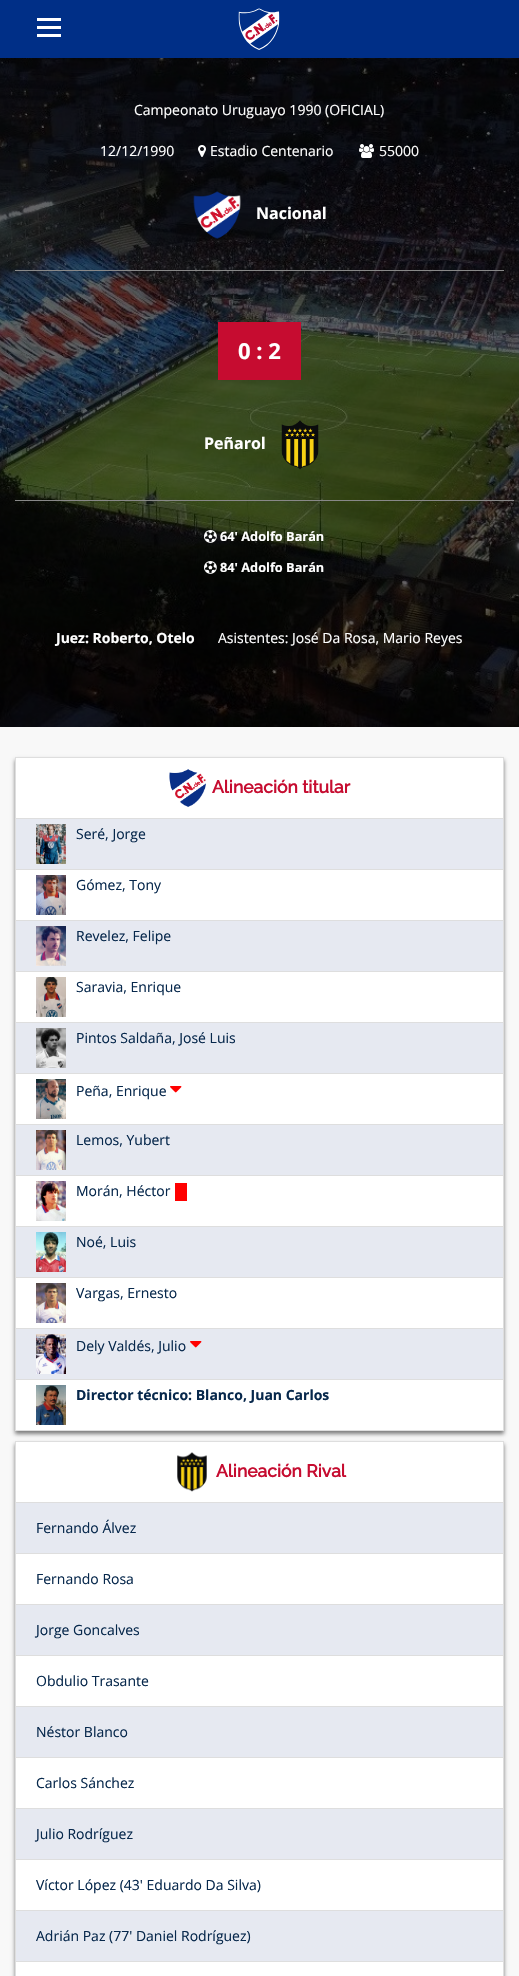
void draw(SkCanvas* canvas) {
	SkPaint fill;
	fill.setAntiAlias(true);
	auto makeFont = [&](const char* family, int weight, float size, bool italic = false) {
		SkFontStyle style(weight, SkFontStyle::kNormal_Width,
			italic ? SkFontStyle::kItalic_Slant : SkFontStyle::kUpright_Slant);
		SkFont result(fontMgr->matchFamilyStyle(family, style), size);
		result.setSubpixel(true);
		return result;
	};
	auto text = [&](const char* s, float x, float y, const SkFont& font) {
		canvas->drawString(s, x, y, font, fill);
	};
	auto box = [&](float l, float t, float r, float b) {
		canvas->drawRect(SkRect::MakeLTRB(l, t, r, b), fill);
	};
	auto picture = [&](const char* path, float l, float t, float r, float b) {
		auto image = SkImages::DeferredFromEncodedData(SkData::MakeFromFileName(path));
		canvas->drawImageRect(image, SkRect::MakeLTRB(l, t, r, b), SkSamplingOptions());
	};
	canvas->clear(0xFFF8F8F8);
	picture("image1.png", 0, 58, 519, 727);
	fill.setColor(0x26000000);
	fill.setMaskFilter(SkMaskFilter::MakeBlur(kNormal_SkBlurStyle, 2));
	canvas->drawRect(SkRect::MakeLTRB(0, 2, 519, 60), fill);
	fill.setMaskFilter(nullptr);
	fill.setColor(0xFF002F87);
	box(0, 0, 519, 58);
	fill.setColor(0xFFFFFFFF);
	box(37, 18, 61, 21);
	box(37, 26, 61, 29);
	box(37, 34, 61, 37);
	picture("image0.png", 238, 8, 280, 50);
	picture("image2.png", 198, 145, 206, 157);
	picture("image3.png", 359, 144, 374, 158);
	picture("image4.png", 193, 191, 241, 239);
	fill.setColor(0xFF888888);
	box(15, 270, 504, 271);
	fill.setColor(0xFFC60C30);
	box(218, 322, 301, 380);
	picture("image5.png", 281, 420, 319, 470);
	fill.setColor(0xFF888888);
	box(15, 500, 514, 501);
	picture("image6.png", 204, 530, 217, 543);
	picture("image7.png", 204, 561, 217, 574);
	fill.setColor(0x80000000);
	fill.setMaskFilter(SkMaskFilter::MakeBlur(kNormal_SkBlurStyle, 2));
	canvas->drawRect(SkRect::MakeLTRB(15, 760, 504, 1434), fill);
	fill.setMaskFilter(nullptr);
	fill.setColor(0xFFFFFFFF);
	box(16, 758, 503, 1430);
	fill.setColor(0xFFDEDEDE);
	box(15, 757, 504, 758);
	box(503, 757, 504, 1431);
	box(15, 1430, 504, 1431);
	box(15, 757, 16, 1431);
	picture("image8.png", 169, 769, 206, 807);
	fill.setColor(0xFFE6E9F1);
	box(16, 819, 503, 869);
	fill.setColor(0xFFDEDEDE);
	box(15, 818, 504, 819);
	picture("image9.png", 36, 824, 66, 864);
	box(15, 869, 504, 870);
	picture("image10.png", 36, 875, 66, 915);
	fill.setColor(0xFFE6E9F1);
	box(16, 921, 503, 971);
	fill.setColor(0xFFDEDEDE);
	box(15, 920, 504, 921);
	picture("image11.png", 36, 926, 66, 966);
	box(15, 971, 504, 972);
	picture("image12.png", 36, 977, 66, 1017);
	fill.setColor(0xFFE6E9F1);
	box(16, 1023, 503, 1073);
	fill.setColor(0xFFDEDEDE);
	box(15, 1022, 504, 1023);
	picture("image13.png", 36, 1028, 66, 1068);
	box(15, 1073, 504, 1074);
	picture("image14.png", 36, 1079, 66, 1119);
	picture("image15.png", 170, 1086, 182, 1093);
	fill.setColor(0xFFE6E9F1);
	box(16, 1125, 503, 1175);
	fill.setColor(0xFFDEDEDE);
	box(15, 1124, 504, 1125);
	picture("image16.png", 36, 1130, 66, 1170);
	box(15, 1175, 504, 1176);
	picture("image17.png", 36, 1181, 66, 1221);
	fill.setColor(0xFFFF0000);
	box(175, 1183, 187, 1201);
	fill.setColor(0xFFE6E9F1);
	box(16, 1227, 503, 1277);
	fill.setColor(0xFFDEDEDE);
	box(15, 1226, 504, 1227);
	picture("image18.png", 36, 1232, 66, 1272);
	box(15, 1277, 504, 1278);
	picture("image19.png", 36, 1283, 66, 1323);
	fill.setColor(0xFFE6E9F1);
	box(16, 1329, 503, 1379);
	fill.setColor(0xFFDEDEDE);
	box(15, 1328, 504, 1329);
	picture("image20.png", 36, 1334, 66, 1374);
	picture("image21.png", 190, 1341, 202, 1348);
	box(15, 1379, 504, 1380);
	picture("image22.png", 36, 1385, 66, 1425);
	fill.setColor(0x80000000);
	fill.setMaskFilter(SkMaskFilter::MakeBlur(kNormal_SkBlurStyle, 2));
	canvas->drawRect(SkRect::MakeLTRB(15, 1444, 504, 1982), fill);
	fill.setMaskFilter(nullptr);
	fill.setColor(0xFFFFFFFF);
	box(16, 1442, 503, 1976);
	fill.setColor(0xFFDEDEDE);
	box(15, 1441, 504, 1442);
	box(503, 1441, 504, 1976);
	box(15, 1441, 16, 1976);
	picture("image23.png", 177, 1452, 207, 1492);
	fill.setColor(0xFFE6E9F1);
	box(16, 1503, 503, 1553);
	fill.setColor(0xFFDEDEDE);
	box(15, 1502, 504, 1503);
	box(15, 1553, 504, 1554);
	fill.setColor(0xFFE6E9F1);
	box(16, 1605, 503, 1655);
	fill.setColor(0xFFDEDEDE);
	box(15, 1604, 504, 1605);
	box(15, 1655, 504, 1656);
	fill.setColor(0xFFE6E9F1);
	box(16, 1707, 503, 1757);
	fill.setColor(0xFFDEDEDE);
	box(15, 1706, 504, 1707);
	box(15, 1757, 504, 1758);
	fill.setColor(0xFFE6E9F1);
	box(16, 1809, 503, 1859);
	fill.setColor(0xFFDEDEDE);
	box(15, 1808, 504, 1809);
	box(15, 1859, 504, 1860);
	fill.setColor(0xFFE6E9F1);
	box(16, 1911, 503, 1961);
	fill.setColor(0xFFDEDEDE);
	box(15, 1910, 504, 1911);
	box(15, 1961, 504, 1962);
	auto font1 = makeFont("Open Sans", 400, 14);
	fill.setColor(0xFFFFFFFF);
	text("Campeonato Uruguayo 1990 (OFICIAL)", 134, 115, font1);
	text("12/12/1990", 100, 156, font1);
	text("Estadio Centenario", 210, 156, font1);
	text("55000", 379, 156, font1);
	auto font2 = makeFont("Open Sans", 700, 16);
	text("Nacional", 256, 219, font2);
	auto font3 = makeFont("Open Sans", 700, 22);
	text("0 : 2", 238, 359, font3);
	text("Peñarol", 204, 449, font2);
	auto font4 = makeFont("Open Sans", 700, 12.75f);
	text("64' Adolfo Barán", 220, 541, font4);
	text("84' Adolfo Barán", 220, 572, font4);
	auto font5 = makeFont("Open Sans", 700, 14);
	text("Juez: Roberto, Otelo", 56, 643, font5);
	text("Asistentes: José Da Rosa, Mario Reyes", 218, 643, font1);
	auto font6 = makeFont("Raleway", 700, 17.5f);
	fill.setColor(0xFFC60C30);
	text("Alineación titular", 212, 793, font6);
	fill.setColor(0xFF07284C);
	text("Seré, Jorge", 76, 839, font1);
	text("Gómez, Tony", 76, 890, font1);
	text("Revelez, Felipe", 76, 941, font1);
	text("Saravia, Enrique", 76, 992, font1);
	text("Pintos Saldaña, José Luis", 76, 1043, font1);
	text("Peña, Enrique", 76, 1096, font1);
	text("Lemos, Yubert", 76, 1145, font1);
	text("Morán, Héctor", 76, 1196, font1);
	text("Noé, Luis", 76, 1247, font1);
	text("Vargas, Ernesto", 76, 1298, font1);
	text("Dely Valdés, Julio", 76, 1351, font1);
	text("Director técnico: Blanco, Juan Carlos", 76, 1400, font5);
	fill.setColor(0xFFC60C30);
	text("Alineación Rival", 216, 1477, font6);
	fill.setColor(0xFF07284C);
	text("Fernando Álvez", 36, 1533, font1);
	text("Fernando Rosa", 36, 1584, font1);
	text("Jorge Goncalves", 36, 1635, font1);
	text("Obdulio Trasante", 36, 1686, font1);
	text("Néstor Blanco", 36, 1737, font1);
	text("Carlos Sánchez", 36, 1788, font1);
	text("Julio Rodríguez", 36, 1839, font1);
	text("Víctor López (43' Eduardo Da Silva)", 36, 1890, font1);
	text("Adrián Paz (77' Daniel Rodríguez)", 36, 1941, font1);
}
